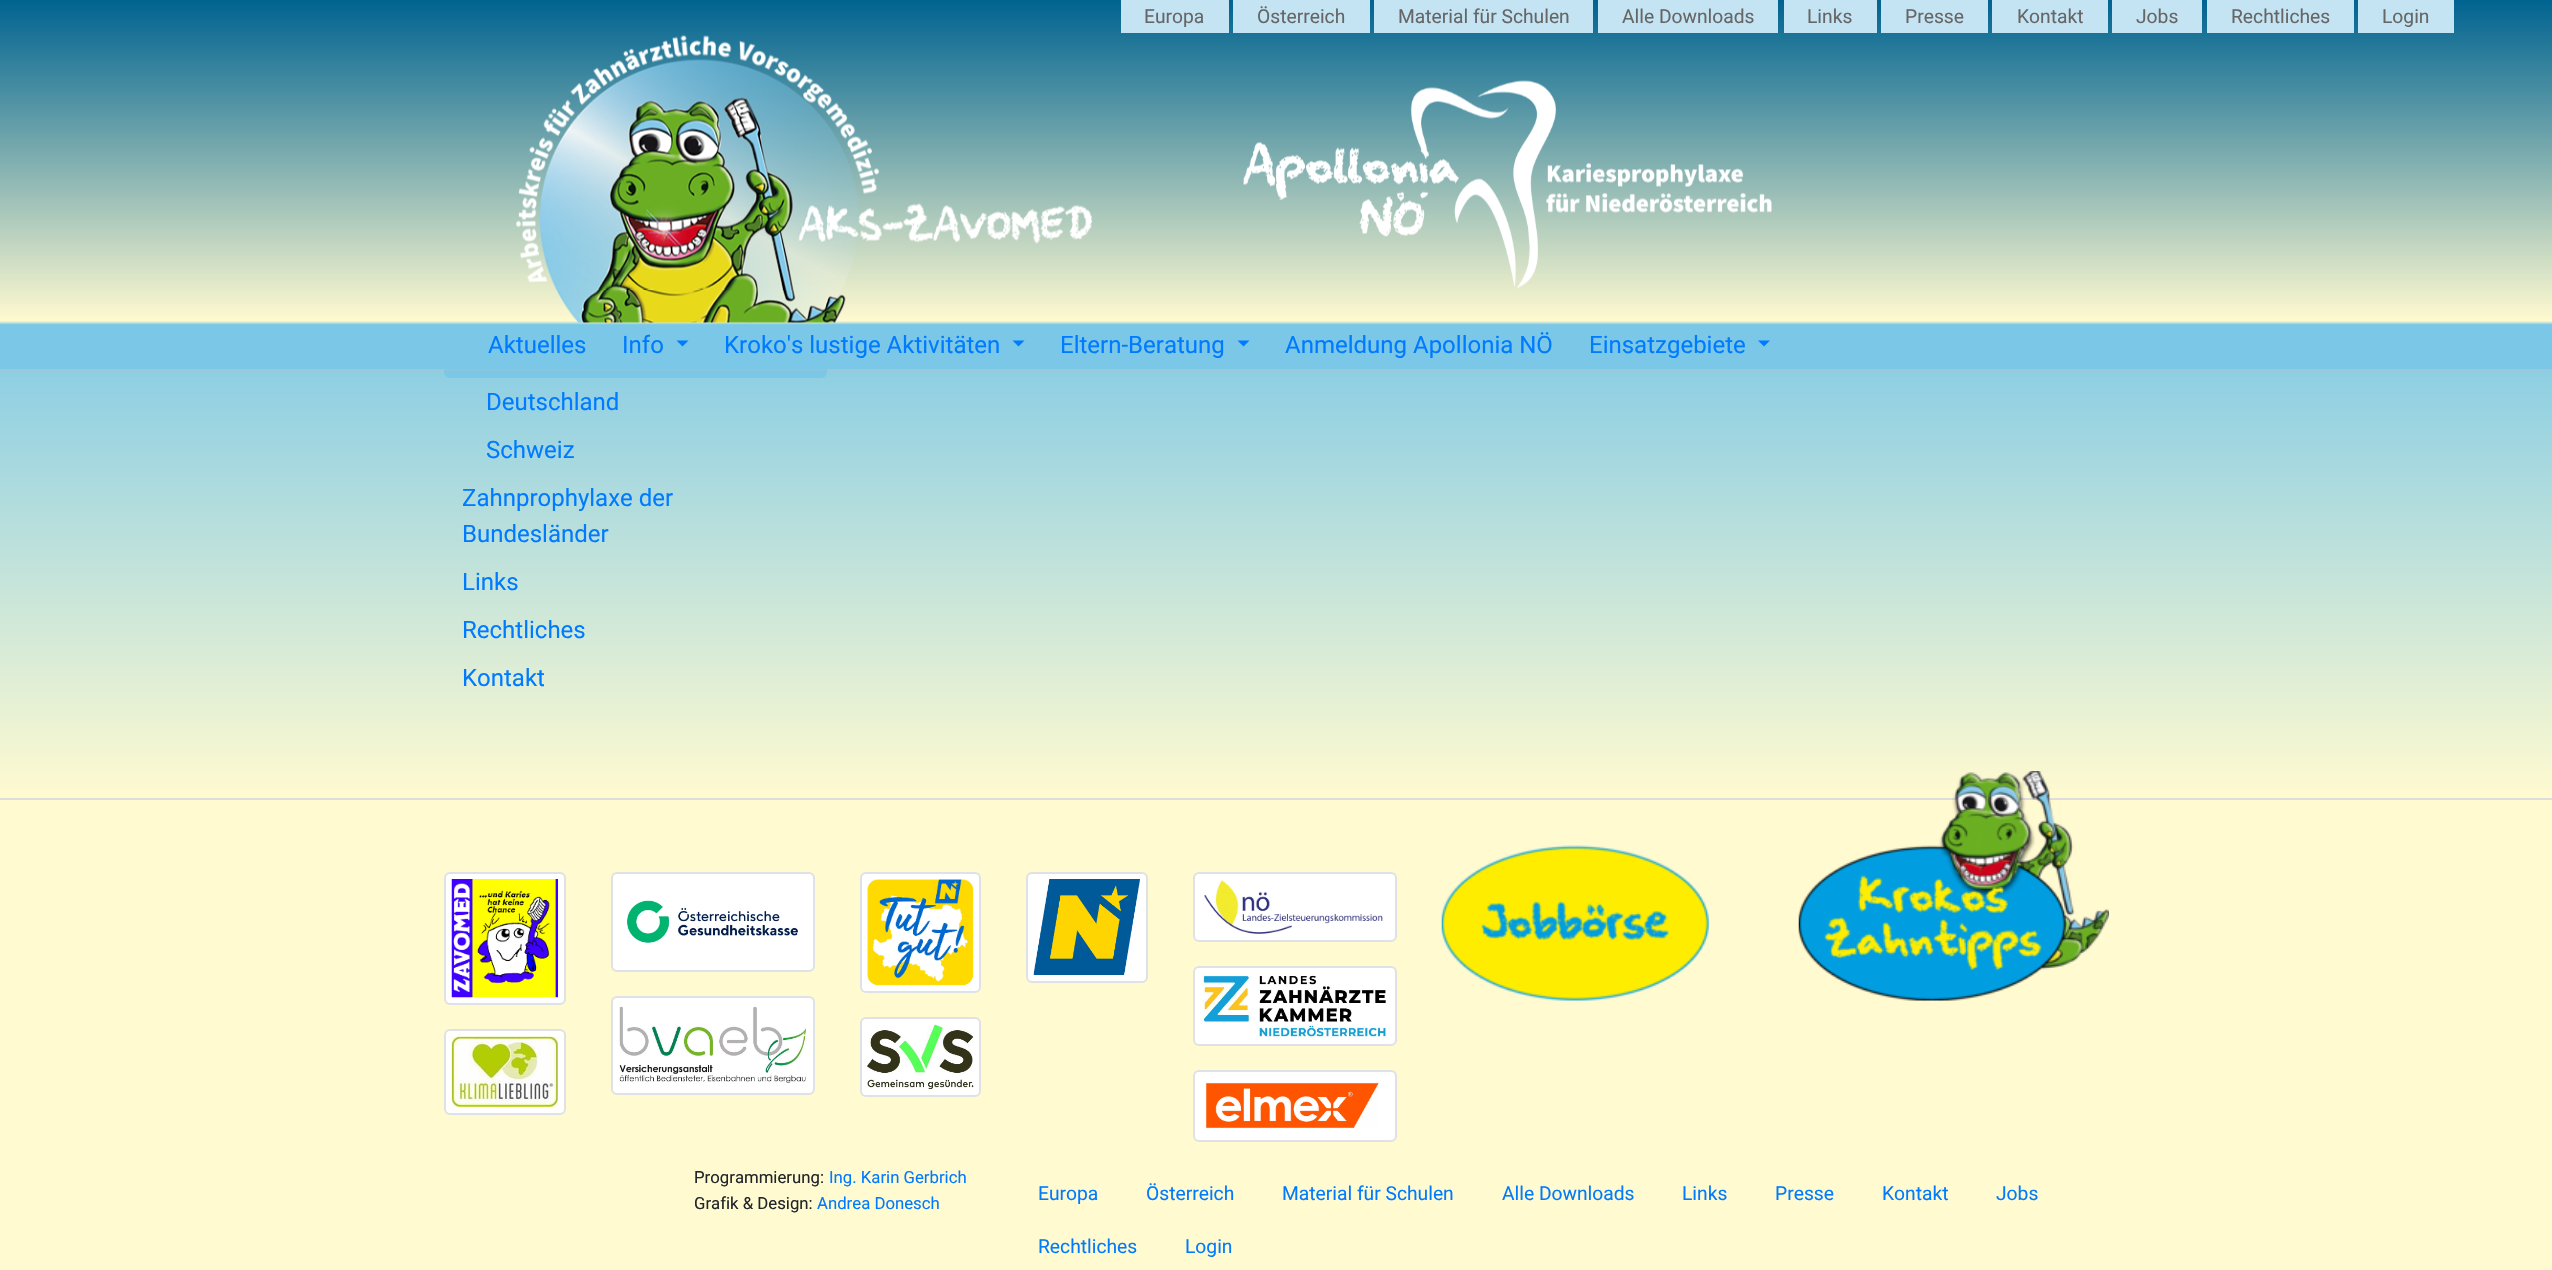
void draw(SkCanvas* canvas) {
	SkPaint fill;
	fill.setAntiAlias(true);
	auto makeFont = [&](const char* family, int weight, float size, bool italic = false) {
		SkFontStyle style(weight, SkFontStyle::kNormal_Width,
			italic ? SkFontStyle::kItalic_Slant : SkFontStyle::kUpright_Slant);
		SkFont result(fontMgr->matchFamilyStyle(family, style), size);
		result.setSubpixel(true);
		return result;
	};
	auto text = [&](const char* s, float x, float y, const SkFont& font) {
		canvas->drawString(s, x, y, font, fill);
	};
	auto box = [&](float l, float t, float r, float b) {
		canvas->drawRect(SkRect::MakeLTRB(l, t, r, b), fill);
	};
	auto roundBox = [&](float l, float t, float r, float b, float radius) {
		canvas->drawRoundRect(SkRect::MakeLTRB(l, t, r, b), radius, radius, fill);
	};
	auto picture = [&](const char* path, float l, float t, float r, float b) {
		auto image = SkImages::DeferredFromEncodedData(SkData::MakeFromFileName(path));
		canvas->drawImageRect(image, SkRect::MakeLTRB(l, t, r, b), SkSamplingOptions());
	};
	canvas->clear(0xFFFFFAD0);
	{
		const SkColor colors[] = {0xFF7AC7E7, 0xFFFFFAD0};
		const float stops[] = {0, 1};
		const SkPoint ends[] = {{1277, 294}, {1277, 798}};
		fill.setShader(SkGradientShader::MakeLinear(ends, colors, stops, 2, SkTileMode::kClamp));
		fill.setAlpha(255);
	}
	box(0, 369, 2552, 789);
	fill.setShader(nullptr);
	fill.setColor(0xFF7AC7E7);
	roundBox(444, 330, 827, 378, 6);
	fill.setColor(0xFFBBBBBB);
	fill.setMaskFilter(SkMaskFilter::MakeBlur(kNormal_SkBlurStyle, 2));
	canvas->drawRect(SkRect::MakeLTRB(0, 0, 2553, 369), fill);
	fill.setMaskFilter(nullptr);
	{
		const SkColor colors[] = {0xFF006390, 0xFFFFFAD0, 0xFF7AC7E7};
		const float stops[] = {0, 0.87f, 0.88f};
		const SkPoint ends[] = {{1277, 0}, {1277, 369}};
		fill.setShader(SkGradientShader::MakeLinear(ends, colors, stops, 3, SkTileMode::kClamp));
		fill.setAlpha(255);
	}
	box(0, 0, 2552, 369);
	fill.setShader(nullptr);
	fill.setColor(0xFFC4E4F3);
	box(1121, 0, 1229, 33);
	box(1233, 0, 1370, 33);
	box(1374, 0, 1593, 33);
	box(1598, 0, 1778, 33);
	box(1784, 0, 1877, 33);
	box(1881, 0, 1988, 33);
	box(1992, 0, 2108, 33);
	box(2112, 0, 2202, 33);
	box(2207, 0, 2354, 33);
	box(2358, 0, 2454, 33);
	picture("image0.png", 516, 35, 1092, 323);
	picture("image1.png", 1243, 80, 1772, 289);
	fill.setColor(0xFF007BFF);
	canvas->drawPath(SkPathBuilder().moveTo(676.5f, 340.5f).lineTo(688.5f, 340.5f).lineTo(682.5f, 346.5f).close().detach(), fill);
	canvas->drawPath(SkPathBuilder().moveTo(1012.5f, 340.5f).lineTo(1024.5f, 340.5f).lineTo(1018.5f, 346.5f).close().detach(), fill);
	canvas->drawPath(SkPathBuilder().moveTo(1237.5f, 340.5f).lineTo(1249.5f, 340.5f).lineTo(1243.5f, 346.5f).close().detach(), fill);
	canvas->drawPath(SkPathBuilder().moveTo(1758, 340.5f).lineTo(1770, 340.5f).lineTo(1764, 346.5f).close().detach(), fill);
	fill.setColor(0xFFDDDDDD);
	box(0, 798, 2552, 800);
	fill.setColor(0xFFFFFFFF);
	canvas->drawRoundRect(SkRect::MakeLTRB(445, 873, 565, 1004), 5, 5, fill);
	fill.setStyle(SkPaint::kStroke_Style);
	fill.setStrokeWidth(2);
	fill.setColor(0xFFDEE2E6);
	canvas->drawRoundRect(SkRect::MakeLTRB(445, 873, 565, 1004), 5, 5, fill);
	picture("image2.png", 451, 879, 558, 998);
	fill.setStyle(SkPaint::kFill_Style);
	fill.setColor(0xFFFFFFFF);
	canvas->drawRoundRect(SkRect::MakeLTRB(445, 1030, 565, 1114), 5, 5, fill);
	fill.setStyle(SkPaint::kStroke_Style);
	fill.setColor(0xFFDEE2E6);
	canvas->drawRoundRect(SkRect::MakeLTRB(445, 1030, 565, 1114), 5, 5, fill);
	picture("image3.png", 451, 1036, 558, 1107);
	fill.setStyle(SkPaint::kFill_Style);
	fill.setColor(0xFFFFFFFF);
	canvas->drawRoundRect(SkRect::MakeLTRB(612, 873, 814, 971), 5, 5, fill);
	fill.setStyle(SkPaint::kStroke_Style);
	fill.setColor(0xFFDEE2E6);
	canvas->drawRoundRect(SkRect::MakeLTRB(612, 873, 814, 971), 5, 5, fill);
	picture("image4.png", 626, 900, 798, 943);
	fill.setStyle(SkPaint::kFill_Style);
	fill.setColor(0xFFFFFFFF);
	canvas->drawRoundRect(SkRect::MakeLTRB(612, 997, 814, 1094), 5, 5, fill);
	fill.setStyle(SkPaint::kStroke_Style);
	fill.setColor(0xFFDEE2E6);
	canvas->drawRoundRect(SkRect::MakeLTRB(612, 997, 814, 1094), 5, 5, fill);
	picture("image5.png", 619, 1006, 806, 1083);
	fill.setStyle(SkPaint::kFill_Style);
	fill.setColor(0xFFFFFFFF);
	canvas->drawRoundRect(SkRect::MakeLTRB(861, 873, 980, 992), 5, 5, fill);
	fill.setStyle(SkPaint::kStroke_Style);
	fill.setColor(0xFFDEE2E6);
	canvas->drawRoundRect(SkRect::MakeLTRB(861, 873, 980, 992), 5, 5, fill);
	picture("image6.png", 867, 879, 974, 986);
	fill.setStyle(SkPaint::kFill_Style);
	fill.setColor(0xFFFFFFFF);
	canvas->drawRoundRect(SkRect::MakeLTRB(861, 1018, 980, 1096), 5, 5, fill);
	fill.setStyle(SkPaint::kStroke_Style);
	fill.setColor(0xFFDEE2E6);
	canvas->drawRoundRect(SkRect::MakeLTRB(861, 1018, 980, 1096), 5, 5, fill);
	picture("image7.png", 867, 1024, 974, 1089);
	fill.setStyle(SkPaint::kFill_Style);
	fill.setColor(0xFFFFFFFF);
	canvas->drawRoundRect(SkRect::MakeLTRB(1027, 873, 1147, 982), 5, 5, fill);
	fill.setStyle(SkPaint::kStroke_Style);
	fill.setColor(0xFFDEE2E6);
	canvas->drawRoundRect(SkRect::MakeLTRB(1027, 873, 1147, 982), 5, 5, fill);
	picture("image8.png", 1033, 879, 1140, 975);
	fill.setStyle(SkPaint::kFill_Style);
	fill.setColor(0xFFFFFFFF);
	canvas->drawRoundRect(SkRect::MakeLTRB(1194, 873, 1396, 941), 5, 5, fill);
	fill.setStyle(SkPaint::kStroke_Style);
	fill.setColor(0xFFDEE2E6);
	canvas->drawRoundRect(SkRect::MakeLTRB(1194, 873, 1396, 941), 5, 5, fill);
	picture("image9.png", 1204, 879, 1383, 934);
	fill.setStyle(SkPaint::kFill_Style);
	fill.setColor(0xFFFFFFFF);
	canvas->drawRoundRect(SkRect::MakeLTRB(1194, 967, 1396, 1045), 5, 5, fill);
	fill.setStyle(SkPaint::kStroke_Style);
	fill.setColor(0xFFDEE2E6);
	canvas->drawRoundRect(SkRect::MakeLTRB(1194, 967, 1396, 1045), 5, 5, fill);
	picture("image10.png", 1201, 974, 1386, 1038);
	fill.setStyle(SkPaint::kFill_Style);
	fill.setColor(0xFFFFFFFF);
	canvas->drawRoundRect(SkRect::MakeLTRB(1194, 1071, 1396, 1141), 5, 5, fill);
	fill.setStyle(SkPaint::kStroke_Style);
	fill.setColor(0xFFDEE2E6);
	canvas->drawRoundRect(SkRect::MakeLTRB(1194, 1071, 1396, 1141), 5, 5, fill);
	picture("image11.png", 1205, 1082, 1379, 1129);
	picture("image12.png", 1441, 845, 1710, 1001);
	picture("image13.png", 1798, 771, 2109, 1001);
	auto font1 = makeFont("Roboto", 400, 19.25f);
	fill.setStyle(SkPaint::kFill_Style);
	fill.setColor(0xFF666666);
	text("Europa", 1144, 23, font1);
	text("Österreich", 1257, 23, font1);
	text("Material für Schulen", 1398, 23, font1);
	text("Alle Downloads", 1622, 23, font1);
	text("Links", 1807, 23, font1);
	text("Presse", 1905, 23, font1);
	text("Kontakt", 2017, 23, font1);
	text("Jobs", 2136, 23, font1);
	text("Rechtliches", 2231, 23, font1);
	text("Login", 2382, 23, font1);
	auto font2 = makeFont("Roboto", 400, 24);
	fill.setColor(0xFF007BFF);
	text("Aktuelles", 488, 353, font2);
	text("Info", 622, 353, font2);
	text("Kroko's lustige Aktivitäten", 724, 353, font2);
	text("Eltern-Beratung", 1060, 353, font2);
	text("Anmeldung Apollonia NÖ", 1285, 353, font2);
	text("Einsatzgebiete", 1589, 353, font2);
	text("Deutschland", 486, 410, font2);
	text("Schweiz", 486, 458, font2);
	text("Zahnprophylaxe der", 462, 506, font2);
	text("Bundesländer", 462, 542, font2);
	text("Links", 462, 590, font2);
	text("Rechtliches", 462, 638, font2);
	text("Kontakt", 462, 686, font2);
	auto font3 = makeFont("Roboto", 400, 16.75f);
	fill.setColor(0xFF212529);
	text("Programmierung:", 694, 1183, font3);
	fill.setColor(0xFF007BFF);
	text("Ing. Karin Gerbrich", 829, 1183, font3);
	fill.setColor(0xFF212529);
	text("Grafik & Design:", 694, 1209, font3);
	fill.setColor(0xFF007BFF);
	text("Andrea Donesch", 817, 1209, font3);
	text("Europa", 1038, 1200, font1);
	text("Österreich", 1146, 1200, font1);
	text("Material für Schulen", 1282, 1200, font1);
	text("Alle Downloads", 1502, 1200, font1);
	text("Links", 1682, 1200, font1);
	text("Presse", 1775, 1200, font1);
	text("Kontakt", 1882, 1200, font1);
	text("Jobs", 1996, 1200, font1);
	text("Rechtliches", 1038, 1253, font1);
	text("Login", 1185, 1253, font1);
}
